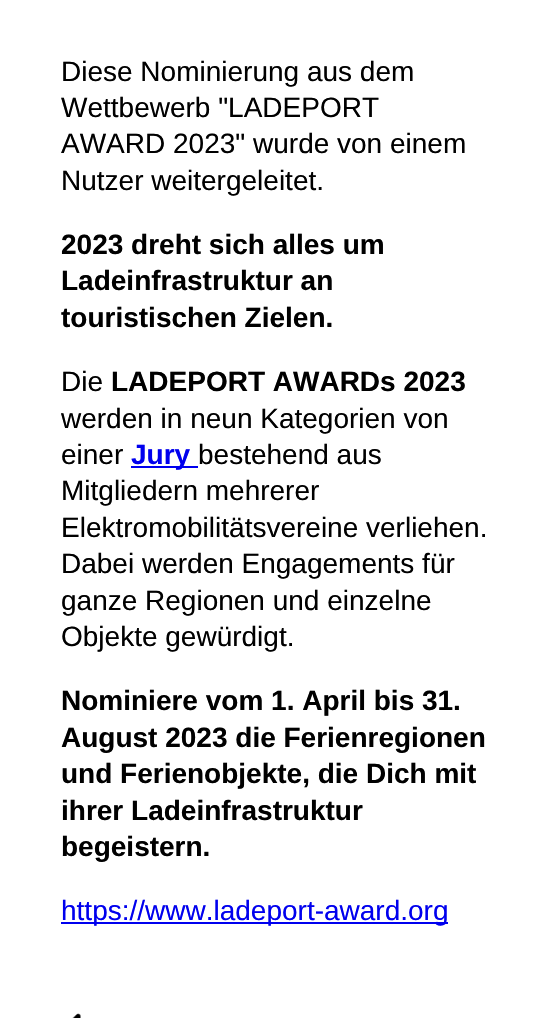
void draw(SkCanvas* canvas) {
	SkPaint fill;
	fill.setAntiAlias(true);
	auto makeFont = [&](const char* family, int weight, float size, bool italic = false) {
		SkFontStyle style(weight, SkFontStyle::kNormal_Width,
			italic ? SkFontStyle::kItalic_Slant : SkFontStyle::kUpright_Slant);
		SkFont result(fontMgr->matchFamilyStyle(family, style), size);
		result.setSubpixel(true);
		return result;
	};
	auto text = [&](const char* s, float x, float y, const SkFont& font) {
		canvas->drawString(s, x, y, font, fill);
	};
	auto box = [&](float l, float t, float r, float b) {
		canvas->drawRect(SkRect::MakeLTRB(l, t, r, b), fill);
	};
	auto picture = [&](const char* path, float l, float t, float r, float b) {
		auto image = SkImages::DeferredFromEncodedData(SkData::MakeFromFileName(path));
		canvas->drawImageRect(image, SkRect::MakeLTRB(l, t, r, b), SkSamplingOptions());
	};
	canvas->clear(0xFFFFFFFF);
	fill.setColor(0xFF0000EE);
	box(131, 466, 198, 468);
	box(61, 922, 448, 924);
	picture("image0.png", 72, 1013, 81, 1018);
	auto font1 = makeFont("Liberation Sans", 400, 28);
	fill.setColor(0xFF000000);
	text("Diese Nominierung aus dem", 61, 81, font1);
	text("Wettbewerb \"LADEPORT", 61, 117, font1);
	text("AWARD 2023\" wurde von einem", 61, 153, font1);
	text("Nutzer weitergeleitet.", 61, 190, font1);
	auto font2 = makeFont("Liberation Sans", 700, 28);
	text("2023 dreht sich alles um", 61, 254, font2);
	text("Ladeinfrastruktur an", 61, 290, font2);
	text("touristischen Zielen.", 61, 327, font2);
	text("Die", 61, 391, font1);
	text("LADEPORT AWARDs 2023", 111, 391, font2);
	text("werden in neun Kategorien von", 61, 428, font1);
	text("einer", 61, 464, font1);
	fill.setColor(0xFF0000EE);
	text("Jury", 131, 464, font2);
	fill.setColor(0xFF000000);
	text("bestehend aus", 198, 464, font1);
	text("Mitgliedern mehrerer", 61, 500, font1);
	text("Elektromobilitätsvereine verliehen.", 61, 537, font1);
	text("Dabei werden Engagements für", 61, 573, font1);
	text("ganze Regionen und einzelne", 61, 610, font1);
	text("Objekte gewürdigt.", 61, 646, font1);
	text("Nominiere vom 1. April bis 31.", 61, 710, font2);
	text("August 2023 die Ferienregionen", 61, 747, font2);
	text("und Ferienobjekte, die Dich mit", 61, 783, font2);
	text("ihrer Ladeinfrastruktur", 61, 820, font2);
	text("begeistern.", 61, 856, font2);
	fill.setColor(0xFF0000EE);
	text("https://www.ladeport-award.org", 61, 920, font1);
}
